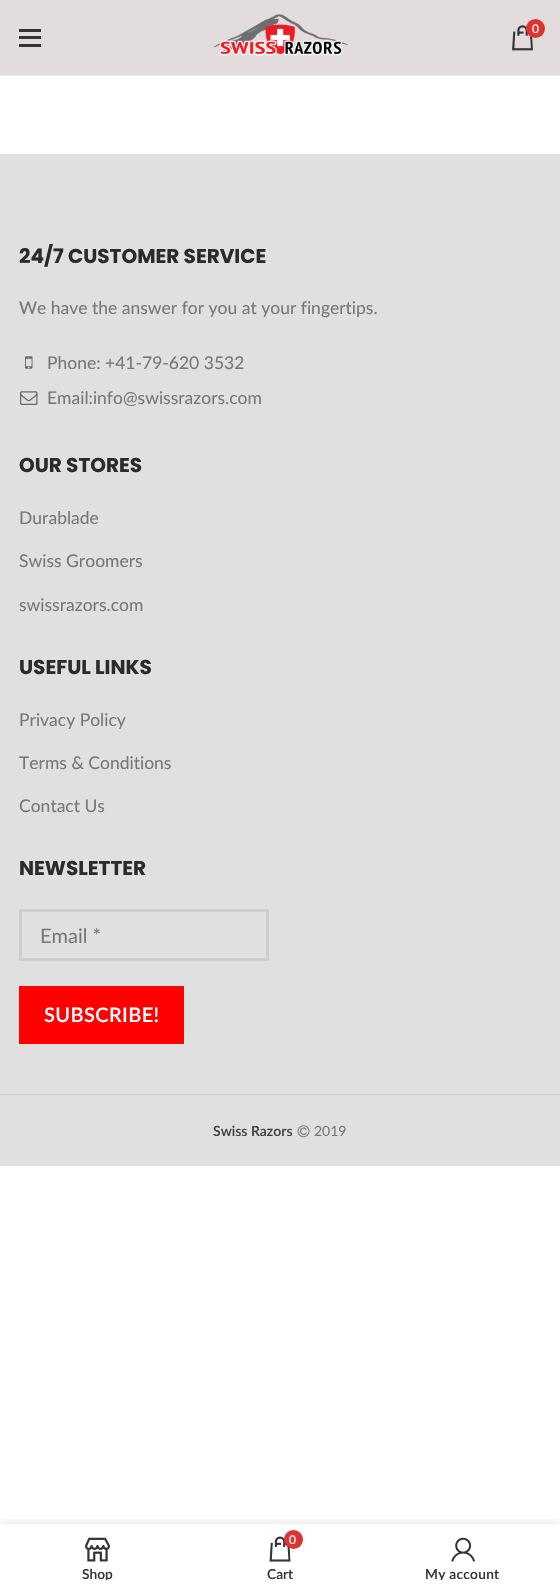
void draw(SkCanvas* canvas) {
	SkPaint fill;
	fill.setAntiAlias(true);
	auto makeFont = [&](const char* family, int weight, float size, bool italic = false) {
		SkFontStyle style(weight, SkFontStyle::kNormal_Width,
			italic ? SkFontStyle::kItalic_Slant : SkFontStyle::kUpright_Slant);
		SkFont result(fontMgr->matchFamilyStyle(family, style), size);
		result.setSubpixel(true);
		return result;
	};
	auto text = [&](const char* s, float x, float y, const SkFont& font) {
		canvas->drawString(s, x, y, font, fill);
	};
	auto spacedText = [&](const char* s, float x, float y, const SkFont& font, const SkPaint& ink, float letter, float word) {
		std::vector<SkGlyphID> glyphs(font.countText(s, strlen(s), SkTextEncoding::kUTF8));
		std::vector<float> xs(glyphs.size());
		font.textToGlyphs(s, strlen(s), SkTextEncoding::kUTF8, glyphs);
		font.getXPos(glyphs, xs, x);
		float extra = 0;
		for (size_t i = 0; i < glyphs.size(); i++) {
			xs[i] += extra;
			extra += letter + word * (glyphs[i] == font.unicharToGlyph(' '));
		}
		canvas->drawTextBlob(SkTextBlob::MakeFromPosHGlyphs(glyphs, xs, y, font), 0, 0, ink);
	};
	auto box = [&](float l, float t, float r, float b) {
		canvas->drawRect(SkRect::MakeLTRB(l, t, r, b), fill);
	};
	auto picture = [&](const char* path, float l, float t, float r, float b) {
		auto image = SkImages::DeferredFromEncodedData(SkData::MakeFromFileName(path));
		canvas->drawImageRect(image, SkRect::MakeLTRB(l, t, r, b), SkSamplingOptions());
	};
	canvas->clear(0xFFFFFFFF);
	fill.setColor(0xFFE2DCDC);
	box(0, 0, 560, 75);
	fill.setColor(0xFFE8E8E8);
	box(0, 75, 560, 76);
	fill.setColor(0xFF333333);
	box(19, 36, 41, 39);
	box(19, 29, 41, 32);
	box(19, 44, 41, 47);
	picture("image0.png", 213, 14, 348, 56);
	picture("image1.png", 512, 25, 533, 51);
	fill.setColor(0xFFDD3333);
	canvas->drawCircle(535.5f, 28.5f, 9.5f, fill);
	fill.setColor(0xFFE0E0E0);
	box(0, 154, 560, 1166);
	picture("image2.png", 25, 356, 33, 369);
	picture("image3.png", 20, 391, 38, 405);
	fill.setStyle(SkPaint::kStroke_Style);
	fill.setStrokeWidth(3);
	fill.setColor(0xFFCDCDCD);
	canvas->drawRect(SkRect::MakeLTRB(20.5f, 910.5f, 267.5f, 959.5f), fill);
	fill.setStyle(SkPaint::kFill_Style);
	fill.setColor(0xFFFF0000);
	box(19, 986, 184, 1044);
	fill.setColor(0xFFCDCDCD);
	box(0, 1094, 560, 1095);
	picture("image4.png", 297, 1125, 310, 1138);
	canvas->save();
	canvas->clipRect(SkRect::MakeLTRB(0, 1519, 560, 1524));
	fill.setColor(0x1F000000);
	fill.setMaskFilter(SkMaskFilter::MakeBlur(kNormal_SkBlurStyle, 5.5f));
	canvas->drawRect(SkRect::MakeLTRB(0, 1524, 560, 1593), fill);
	fill.setMaskFilter(nullptr);
	canvas->restore();
	picture("image5.png", 85, 1537, 110, 1562);
	picture("image6.png", 269, 1536, 291, 1562);
	fill.setColor(0xFFDD3333);
	canvas->drawCircle(293.5f, 1539.5f, 9.5f, fill);
	picture("image7.png", 451, 1537, 475, 1562);
	auto font1 = makeFont("Lato", 400, 12);
	fill.setColor(0xFFFFFFFF);
	text("0", 532, 33, font1);
	auto font2 = makeFont("Poppins", 700, 20);
	fill.setColor(0xFF2D2A2A);
	text("24/7 CUSTOMER SERVICE", 19, 263, font2);
	auto font3 = makeFont("Lato", 400, 17.5f);
	fill.setColor(0xFF777777);
	text("We have the answer for you at your fingertips.", 19, 314, font3);
	text("Phone: +41-79-620 3532", 47, 369, font3);
	text("Email:info@swissrazors.com", 47, 404, font3);
	fill.setColor(0xFF2D2A2A);
	text("OUR STORES", 19, 472, font2);
	fill.setColor(0xFF777777);
	text("Durablade", 19, 524, font3);
	text("Swiss Groomers", 19, 567, font3);
	text("swissrazors.com", 19, 611, font3);
	fill.setColor(0xFF2D2A2A);
	text("USEFUL LINKS", 19, 674, font2);
	fill.setColor(0xFF777777);
	text("Privacy Policy", 19, 726, font3);
	text("Terms & Conditions", 19, 769, font3);
	text("Contact Us", 19, 812, font3);
	fill.setColor(0xFF2D2A2A);
	text("NEWSLETTER", 19, 875, font2);
	auto font4 = makeFont("Lato", 400, 20);
	fill.setColor(0xFF777777);
	text("Email *", 40, 943, font4);
	auto font5 = makeFont("Lato", 600, 20);
	fill.setColor(0xFFFFFFFF);
	spacedText("SUBSCRIBE!", 44, 1022, font5, fill, 0.4f, 0);
	auto font6 = makeFont("Lato", 600, 14);
	fill.setColor(0xFF3F3F3F);
	text("Swiss Razors", 213, 1136, font6);
	auto font7 = makeFont("Lato", 400, 14);
	fill.setColor(0xFF777777);
	text("2019", 314, 1136, font7);
	canvas->save();
	canvas->clipRect(SkRect::MakeLTRB(19, 1566, 176, 1580));
	auto font8 = makeFont("Lato", 600, 13.75f);
	fill.setColor(0xFF333333);
	text("Shop", 82, 1579, font8);
	canvas->restore();
	fill.setColor(0xFFFFFFFF);
	text("0", 289, 1544, font1);
	fill.setColor(0xFF333333);
	text("Cart", 267, 1579, font8);
	canvas->save();
	canvas->clipRect(SkRect::MakeLTRB(384, 1566, 541, 1580));
	spacedText("My account", 425, 1579, font8, fill, 0.25f, 0);
	canvas->restore();
}
